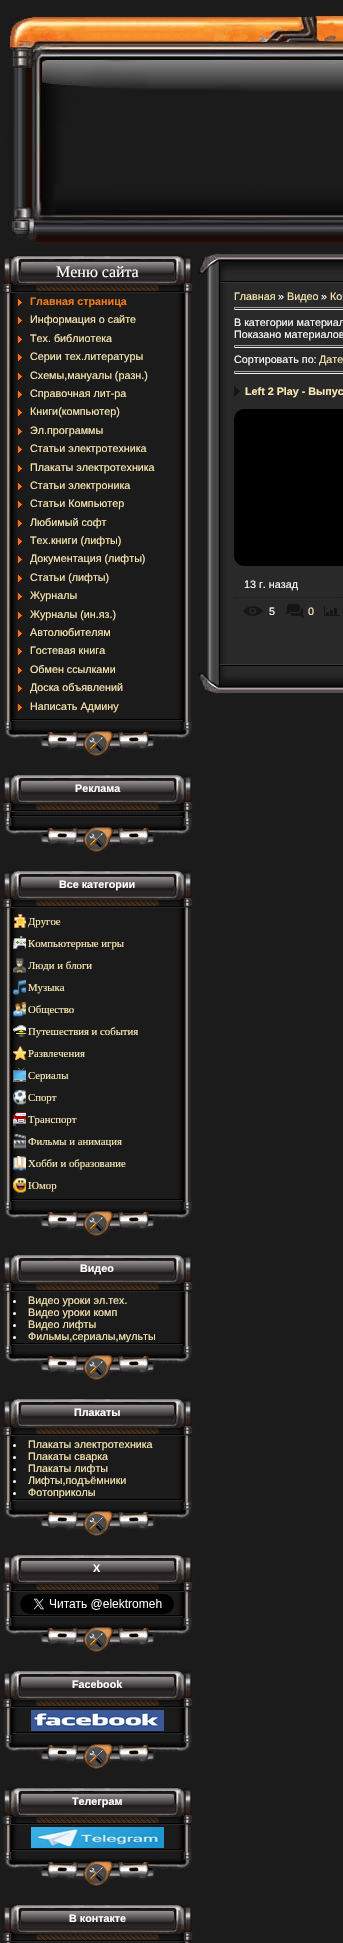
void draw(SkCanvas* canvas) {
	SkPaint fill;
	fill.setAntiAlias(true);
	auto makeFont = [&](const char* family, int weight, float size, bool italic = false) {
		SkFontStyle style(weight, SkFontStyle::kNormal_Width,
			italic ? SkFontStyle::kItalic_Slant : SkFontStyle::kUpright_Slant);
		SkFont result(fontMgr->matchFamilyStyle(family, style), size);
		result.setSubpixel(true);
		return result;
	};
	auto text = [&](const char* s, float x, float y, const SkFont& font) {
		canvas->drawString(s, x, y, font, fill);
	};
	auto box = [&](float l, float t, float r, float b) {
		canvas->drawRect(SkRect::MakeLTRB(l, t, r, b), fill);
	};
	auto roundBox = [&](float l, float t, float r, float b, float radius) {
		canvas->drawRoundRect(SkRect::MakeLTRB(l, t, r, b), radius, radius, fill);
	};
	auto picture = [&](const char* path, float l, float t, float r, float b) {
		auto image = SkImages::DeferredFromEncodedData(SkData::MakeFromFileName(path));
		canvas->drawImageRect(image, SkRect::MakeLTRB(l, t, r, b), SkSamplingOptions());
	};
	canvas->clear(0xFF1B1B1B);
	picture("image0.png", 0, 15, 343, 248);
	picture("image1.png", 0, 250, 194, 757);
	picture("image2.png", 2, 250, 194, 295);
	picture("image3.png", 17, 298, 23, 307);
	picture("image3.png", 17, 316, 23, 325);
	picture("image3.png", 17, 335, 23, 344);
	picture("image3.png", 17, 353, 23, 362);
	picture("image3.png", 17, 372, 23, 381);
	picture("image3.png", 17, 390, 23, 399);
	picture("image3.png", 17, 408, 23, 417);
	picture("image3.png", 17, 427, 23, 436);
	picture("image3.png", 17, 445, 23, 454);
	picture("image3.png", 17, 464, 23, 473);
	picture("image3.png", 17, 482, 23, 491);
	picture("image3.png", 17, 500, 23, 509);
	picture("image3.png", 17, 519, 23, 528);
	picture("image3.png", 17, 537, 23, 546);
	picture("image3.png", 17, 555, 23, 564);
	picture("image3.png", 17, 574, 23, 583);
	picture("image3.png", 17, 592, 23, 601);
	picture("image3.png", 17, 611, 23, 620);
	picture("image3.png", 17, 629, 23, 638);
	picture("image3.png", 17, 647, 23, 656);
	picture("image3.png", 17, 666, 23, 675);
	picture("image3.png", 17, 684, 23, 693);
	picture("image3.png", 17, 703, 23, 712);
	picture("image4.png", 4, 718, 192, 757);
	picture("image5.png", 0, 769, 194, 853);
	picture("image2.png", 2, 769, 194, 814);
	picture("image4.png", 4, 814, 192, 853);
	picture("image6.png", 0, 865, 194, 1237);
	picture("image2.png", 2, 865, 194, 910);
	picture("image7.png", 14, 914, 26, 929);
	picture("image8.png", 13, 936, 26, 949);
	picture("image9.png", 13, 958, 26, 973);
	picture("image10.png", 13, 980, 26, 995);
	picture("image11.png", 13, 1002, 26, 1017);
	picture("image12.png", 13, 1025, 26, 1038);
	picture("image13.png", 13, 1046, 26, 1061);
	picture("image14.png", 13, 1068, 26, 1083);
	picture("image15.png", 13, 1090, 26, 1105);
	picture("image16.png", 13, 1112, 26, 1126);
	picture("image17.png", 13, 1134, 26, 1149);
	picture("image18.png", 13, 1156, 26, 1171);
	picture("image19.png", 13, 1178, 26, 1193);
	picture("image4.png", 4, 1198, 192, 1237);
	picture("image20.png", 0, 1249, 194, 1381);
	picture("image2.png", 2, 1249, 194, 1294);
	fill.setColor(0xFFFFFFFF);
	canvas->drawCircle(14.5f, 1301.5f, 1.5f, fill);
	canvas->drawCircle(14.5f, 1313.5f, 1.5f, fill);
	canvas->drawCircle(14.5f, 1325.5f, 1.5f, fill);
	canvas->drawCircle(14.5f, 1337.5f, 1.5f, fill);
	picture("image21.png", 0, 1393, 194, 1537);
	picture("image2.png", 2, 1393, 194, 1438);
	canvas->drawCircle(14.5f, 1445.5f, 1.5f, fill);
	canvas->drawCircle(14.5f, 1457.5f, 1.5f, fill);
	canvas->drawCircle(14.5f, 1469.5f, 1.5f, fill);
	canvas->drawCircle(14.5f, 1481.5f, 1.5f, fill);
	canvas->drawCircle(14.5f, 1493.5f, 1.5f, fill);
	picture("image22.png", 0, 1549, 194, 1653);
	picture("image2.png", 2, 1549, 194, 1594);
	picture("image23.png", 20, 1594, 174, 1614);
	picture("image4.png", 4, 1614, 192, 1653);
	picture("image24.png", 0, 1665, 194, 1770);
	picture("image2.png", 2, 1665, 194, 1710);
	picture("image25.png", 31, 1710, 164, 1731);
	picture("image4.png", 4, 1731, 192, 1770);
	picture("image24.png", 0, 1782, 194, 1887);
	picture("image2.png", 2, 1782, 194, 1827);
	picture("image26.png", 31, 1827, 164, 1848);
	picture("image4.png", 4, 1848, 192, 1887);
	picture("image27.png", 0, 1899, 2, 1943);
	picture("image28.png", 2, 1899, 194, 1943);
	picture("image29.png", 198, 253, 234, 290);
	picture("image30.png", 234, 254, 343, 290);
	picture("image31.png", 207, 290, 234, 657);
	fill.setColor(0xFF292929);
	box(234, 290, 343, 657);
	fill.setColor(0xFF9F9F9F);
	box(234, 307, 343, 308);
	fill.setColor(0xFFEEEEEE);
	box(234, 309, 343, 310);
	fill.setColor(0xFF9F9F9F);
	box(234, 307, 235, 310);
	box(234, 345, 343, 346);
	fill.setColor(0xFFEEEEEE);
	box(234, 347, 343, 348);
	fill.setColor(0xFF9F9F9F);
	box(234, 345, 235, 348);
	box(234, 371, 343, 372);
	fill.setColor(0xFFEEEEEE);
	box(234, 373, 343, 374);
	fill.setColor(0xFF9F9F9F);
	box(234, 371, 235, 374);
	picture("image32.png", 234, 386, 240, 397);
	fill.setColor(0xFF000000);
	roundBox(234, 409, 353, 566, 10);
	picture("image33.png", 234, 597, 343, 598);
	picture("image34.png", 243, 606, 263, 616);
	picture("image35.png", 285, 604, 305, 618);
	picture("image36.png", 324, 606, 340, 616);
	picture("image37.png", 198, 657, 234, 694);
	picture("image38.png", 234, 657, 343, 693);
	auto font1 = makeFont("Liberation Serif", 400, 16);
	fill.setColor(0xFFFFFFFF);
	text("Меню сайта", 56, 277, font1);
	auto font2 = makeFont("Liberation Sans", 700, 10.75f);
	fill.setColor(0xFFF17C1C);
	text("Главная страница", 30, 305, font2);
	auto font3 = makeFont("Liberation Sans", 400, 10.75f);
	fill.setColor(0xFFFBEAB2);
	text("Информация о сайте", 30, 323, font3);
	text("Тех. библиотека", 30, 342, font3);
	text("Серии тех.литературы", 30, 360, font3);
	text("Схемы,мануалы (разн.)", 30, 379, font3);
	text("Справочная лит-ра", 30, 397, font3);
	text("Книги(компьютер)", 30, 415, font3);
	text("Эл.программы", 30, 434, font3);
	text("Статьи электротехника", 30, 452, font3);
	text("Плакаты электротехника", 30, 471, font3);
	text("Статьи электроника", 30, 489, font3);
	text("Статьи Компьютер", 30, 507, font3);
	text("Любимый софт", 30, 526, font3);
	text("Тех.книги (лифты)", 30, 544, font3);
	text("Документация (лифты)", 30, 562, font3);
	text("Статьи (лифты)", 30, 581, font3);
	text("Журналы", 30, 599, font3);
	text("Журналы (ин.яз.)", 30, 618, font3);
	text("Автолюбителям", 30, 636, font3);
	text("Гостевая книга", 30, 654, font3);
	text("Обмен ссылками", 30, 673, font3);
	text("Доска объявлений", 30, 691, font3);
	text("Написать Админу", 30, 710, font3);
	fill.setColor(0xFFFFFFFF);
	text("Реклама", 75, 792, font2);
	text("Все категории", 59, 888, font2);
	auto font4 = makeFont("Liberation Serif", 400, 10.75f);
	fill.setColor(0xFFFBEAB2);
	text("Другое", 28, 925, font4);
	text("Компьютерные игры", 28, 947, font4);
	text("Люди и блоги", 28, 969, font4);
	text("Музыка", 28, 991, font4);
	text("Общество", 28, 1013, font4);
	text("Путешествия и события", 28, 1035, font4);
	text("Развлечения", 28, 1057, font4);
	text("Сериалы", 28, 1079, font4);
	text("Спорт", 28, 1101, font4);
	text("Транспорт", 28, 1123, font4);
	text("Фильмы и анимация", 28, 1145, font4);
	text("Хобби и образование", 28, 1167, font4);
	text("Юмор", 28, 1189, font4);
	fill.setColor(0xFFFFFFFF);
	text("Видео", 80, 1272, font2);
	fill.setColor(0xFFFBEAB2);
	text("Видео уроки эл.тех.", 28, 1304, font3);
	text("Видео уроки комп", 28, 1316, font3);
	text("Видео лифты", 28, 1328, font3);
	text("Фильмы,сериалы,мульты", 28, 1340, font3);
	picture("image4.png", 4, 1342, 192, 1381);
	fill.setColor(0xFFFFFFFF);
	text("Плакаты", 74, 1416, font2);
	fill.setColor(0xFFFBEAB2);
	text("Плакаты электротехника", 28, 1448, font3);
	text("Плакаты сварка", 28, 1460, font3);
	text("Плакаты лифты", 28, 1472, font3);
	text("Лифты,подъёмники", 28, 1484, font3);
	text("Фотоприколы", 28, 1496, font3);
	picture("image4.png", 4, 1498, 192, 1537);
	fill.setColor(0xFFFFFFFF);
	text("X", 93, 1572, font2);
	text("Facebook", 72, 1688, font2);
	text("Телеграм", 72, 1805, font2);
	text("В контакте", 69, 1922, font2);
	fill.setColor(0xFFFBEAB2);
	text("Главная", 234, 300, font3);
	fill.setColor(0xFFFFFFFF);
	text("»", 278, 300, font3);
	fill.setColor(0xFFFBEAB2);
	text("Видео", 287, 300, font3);
	fill.setColor(0xFFFFFFFF);
	text("»", 321, 300, font3);
	fill.setColor(0xFFFBEAB2);
	text("Ко", 330, 300, font3);
	fill.setColor(0xFFFFFFFF);
	text("В категории материал", 234, 326, font3);
	text("Показано материалов", 234, 338, font3);
	text("Сортировать по:", 234, 363, font3);
	fill.setColor(0xFFFBEAB2);
	text("Дате", 319, 363, font3);
	text("Left 2 Play - Выпус", 245, 395, font2);
	fill.setColor(0xFFFFFFFF);
	text("13 г. назад", 244, 588, font3);
	text("5", 269, 615, font3);
	fill.setColor(0xFFFBEAB2);
	text("0", 308, 615, font3);
}
